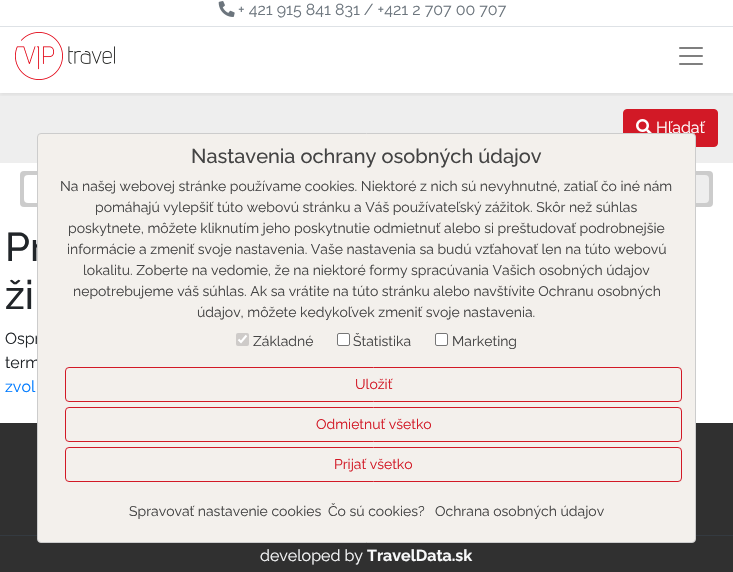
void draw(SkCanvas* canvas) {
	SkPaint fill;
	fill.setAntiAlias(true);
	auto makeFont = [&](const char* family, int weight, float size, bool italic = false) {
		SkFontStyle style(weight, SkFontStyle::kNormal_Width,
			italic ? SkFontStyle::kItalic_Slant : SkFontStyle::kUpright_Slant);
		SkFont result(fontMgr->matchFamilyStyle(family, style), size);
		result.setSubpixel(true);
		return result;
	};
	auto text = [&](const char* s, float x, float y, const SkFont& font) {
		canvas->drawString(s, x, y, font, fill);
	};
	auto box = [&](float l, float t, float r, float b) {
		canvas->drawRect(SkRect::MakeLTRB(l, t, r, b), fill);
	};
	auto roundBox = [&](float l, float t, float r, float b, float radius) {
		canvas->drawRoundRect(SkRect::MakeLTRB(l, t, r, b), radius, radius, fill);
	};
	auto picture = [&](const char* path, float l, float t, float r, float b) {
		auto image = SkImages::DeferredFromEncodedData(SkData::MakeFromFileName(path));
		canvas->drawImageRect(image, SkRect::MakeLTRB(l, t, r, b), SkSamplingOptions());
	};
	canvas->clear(0xFFFFFFFF);
	fill.setColor(0xFFEEEEEE);
	box(0, 93, 733, 163);
	canvas->save();
	canvas->clipRect(SkRect::MakeLTRB(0, 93, 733, 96));
	fill.setColor(0x12000000);
	fill.setMaskFilter(SkMaskFilter::MakeBlur(kNormal_SkBlurStyle, 2));
	canvas->drawRect(SkRect::MakeLTRB(0, -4, 733, 95), fill);
	fill.setMaskFilter(nullptr);
	canvas->restore();
	fill.setColor(0xFFDEE2E6);
	box(0, 26, 733, 27);
	picture("image0.png", 218, 1, 235, 17);
	picture("image1.png", 15, 32, 115, 80);
	picture("image2.png", 679, 47, 703, 65);
	fill.setColor(0xFFD21926);
	canvas->drawRoundRect(SkRect::MakeLTRB(623.5f, 109.5f, 717.5f, 146.5f), 3.5f, 3.5f, fill);
	fill.setStyle(SkPaint::kStroke_Style);
	fill.setStrokeWidth(1);
	canvas->drawRoundRect(SkRect::MakeLTRB(623.5f, 109.5f, 717.5f, 146.5f), 3.5f, 3.5f, fill);
	picture("image3.png", 636, 119, 652, 133);
	fill.setStyle(SkPaint::kFill_Style);
	fill.setColor(0xFFCCCCCC);
	roundBox(20, 171, 713, 207, 4);
	fill.setColor(0xFFFFFFFF);
	roundBox(24, 175, 150, 203, 4);
	fill.setColor(0xFFEEEEEE);
	roundBox(578, 175, 709, 203, 4);
	fill.setColor(0xFF303030);
	box(0, 423, 733, 572);
	fill.setColor(0xFF343A40);
	box(0, 535, 733, 536);
	auto font1 = makeFont("Raleway", 400, 16);
	fill.setColor(0xFF6C757D);
	text("+ 421 915 841 831 / +421 2 707 00 707", 238, 15, font1);
	fill.setColor(0xFFFFFFFF);
	text("Hľadať", 656, 133, font1);
	auto font2 = makeFont("Raleway", 500, 40);
	fill.setColor(0xFF212529);
	text("Pr", 5, 261, font2);
	text("ži", 5, 309, font2);
	text("Ospr", 5, 344, font1);
	text("term", 5, 368, font1);
	fill.setColor(0xFF007BFF);
	text("zvol", 5, 392, font1);
	fill.setColor(0xFFF3F0EC);
	canvas->drawRoundRect(SkRect::MakeLTRB(37.5f, 133.5f, 695.5f, 542.5f), 3.5f, 3.5f, fill);
	fill.setStyle(SkPaint::kStroke_Style);
	fill.setColor(0xFFCCCCCC);
	canvas->drawRoundRect(SkRect::MakeLTRB(37.5f, 133.5f, 695.5f, 542.5f), 3.5f, 3.5f, fill);
	auto font3 = makeFont("Raleway", 500, 20);
	fill.setStyle(SkPaint::kFill_Style);
	fill.setColor(0xFF444444);
	text("Nastavenia ochrany osobných údajov", 191, 163, font3);
	auto font4 = makeFont("Raleway", 400, 14);
	text("Na našej webovej stránke používame cookies. Niektoré z nich sú nevyhnutné, zatiaľ čo iné nám", 60, 191, font4);
	text("pomáhajú vylepšiť túto webovú stránku a Váš používateľský zážitok. Skôr než súhlas", 95, 212, font4);
	text("poskytnete, môžete kliknutím jeho poskytnutie odmietnuť alebo si preštudovať podrobnejšie", 68, 233, font4);
	text("informácie a zmeniť svoje nastavenia. Vaše nastavenia sa budú vzťahovať len na túto webovú", 67, 254, font4);
	text("lokalitu. Zoberte na vedomie, že na niektoré formy spracúvania Vašich osobných údajov", 83, 275, font4);
	text("nepotrebujeme váš súhlas. Ak sa vrátite na túto stránku alebo navštívite Ochranu osobných", 73, 296, font4);
	text("údajov, môžete kedykoľvek zmeniť svoje nastavenia.", 197, 317, font4);
	fill.setColor(0xFFCECBC9);
	roundBox(236, 333, 249, 346, 2);
	fill.setStyle(SkPaint::kStroke_Style);
	fill.setStrokeWidth(2.1f);
	fill.setColor(0xFFFFFFFF);
	canvas->drawPath(SkPathBuilder().moveTo(238.5f, 339.5f).lineTo(241, 342).lineTo(246.5f, 335.5f).detach(), fill);
	fill.setStyle(SkPaint::kFill_Style);
	fill.setColor(0xFF444444);
	text("Základné", 253, 346, font4);
	fill.setColor(0xFFFFFFFF);
	canvas->drawRoundRect(SkRect::MakeLTRB(337.5f, 333.5f, 349.5f, 345.5f), 1.5f, 1.5f, fill);
	fill.setStyle(SkPaint::kStroke_Style);
	fill.setStrokeWidth(1);
	fill.setColor(0xFF767676);
	canvas->drawRoundRect(SkRect::MakeLTRB(337.5f, 333.5f, 349.5f, 345.5f), 1.5f, 1.5f, fill);
	fill.setStyle(SkPaint::kFill_Style);
	fill.setColor(0xFF444444);
	text("Štatistika", 353, 346, font4);
	fill.setColor(0xFFFFFFFF);
	canvas->drawRoundRect(SkRect::MakeLTRB(435.5f, 333.5f, 447.5f, 345.5f), 1.5f, 1.5f, fill);
	fill.setStyle(SkPaint::kStroke_Style);
	fill.setColor(0xFF767676);
	canvas->drawRoundRect(SkRect::MakeLTRB(435.5f, 333.5f, 447.5f, 345.5f), 1.5f, 1.5f, fill);
	fill.setStyle(SkPaint::kFill_Style);
	fill.setColor(0xFF444444);
	text("Marketing", 452, 346, font4);
	fill.setStyle(SkPaint::kStroke_Style);
	fill.setColor(0xFFD21926);
	canvas->drawRoundRect(SkRect::MakeLTRB(65.5f, 367.5f, 681.5f, 401.5f), 3.5f, 3.5f, fill);
	fill.setStyle(SkPaint::kFill_Style);
	text("Uložiť", 355, 389, font4);
	fill.setStyle(SkPaint::kStroke_Style);
	canvas->drawRoundRect(SkRect::MakeLTRB(65.5f, 407.5f, 681.5f, 441.5f), 3.5f, 3.5f, fill);
	fill.setStyle(SkPaint::kFill_Style);
	text("Odmietnuť všetko", 316, 429, font4);
	fill.setStyle(SkPaint::kStroke_Style);
	canvas->drawRoundRect(SkRect::MakeLTRB(65.5f, 447.5f, 681.5f, 481.5f), 3.5f, 3.5f, fill);
	fill.setStyle(SkPaint::kFill_Style);
	text("Prijať všetko", 334, 469, font4);
	fill.setColor(0xFF444444);
	text("Spravovať nastavenie cookies", 129, 516, font4);
	text("Čo sú cookies?", 328, 516, font4);
	text("Ochrana osobných údajov", 435, 516, font4);
	fill.setColor(0xFFF8F9FA);
	text("developed by", 260, 561, font1);
	auto font5 = makeFont("Raleway", 700, 16);
	text("TravelData.sk", 367, 561, font5);
}
